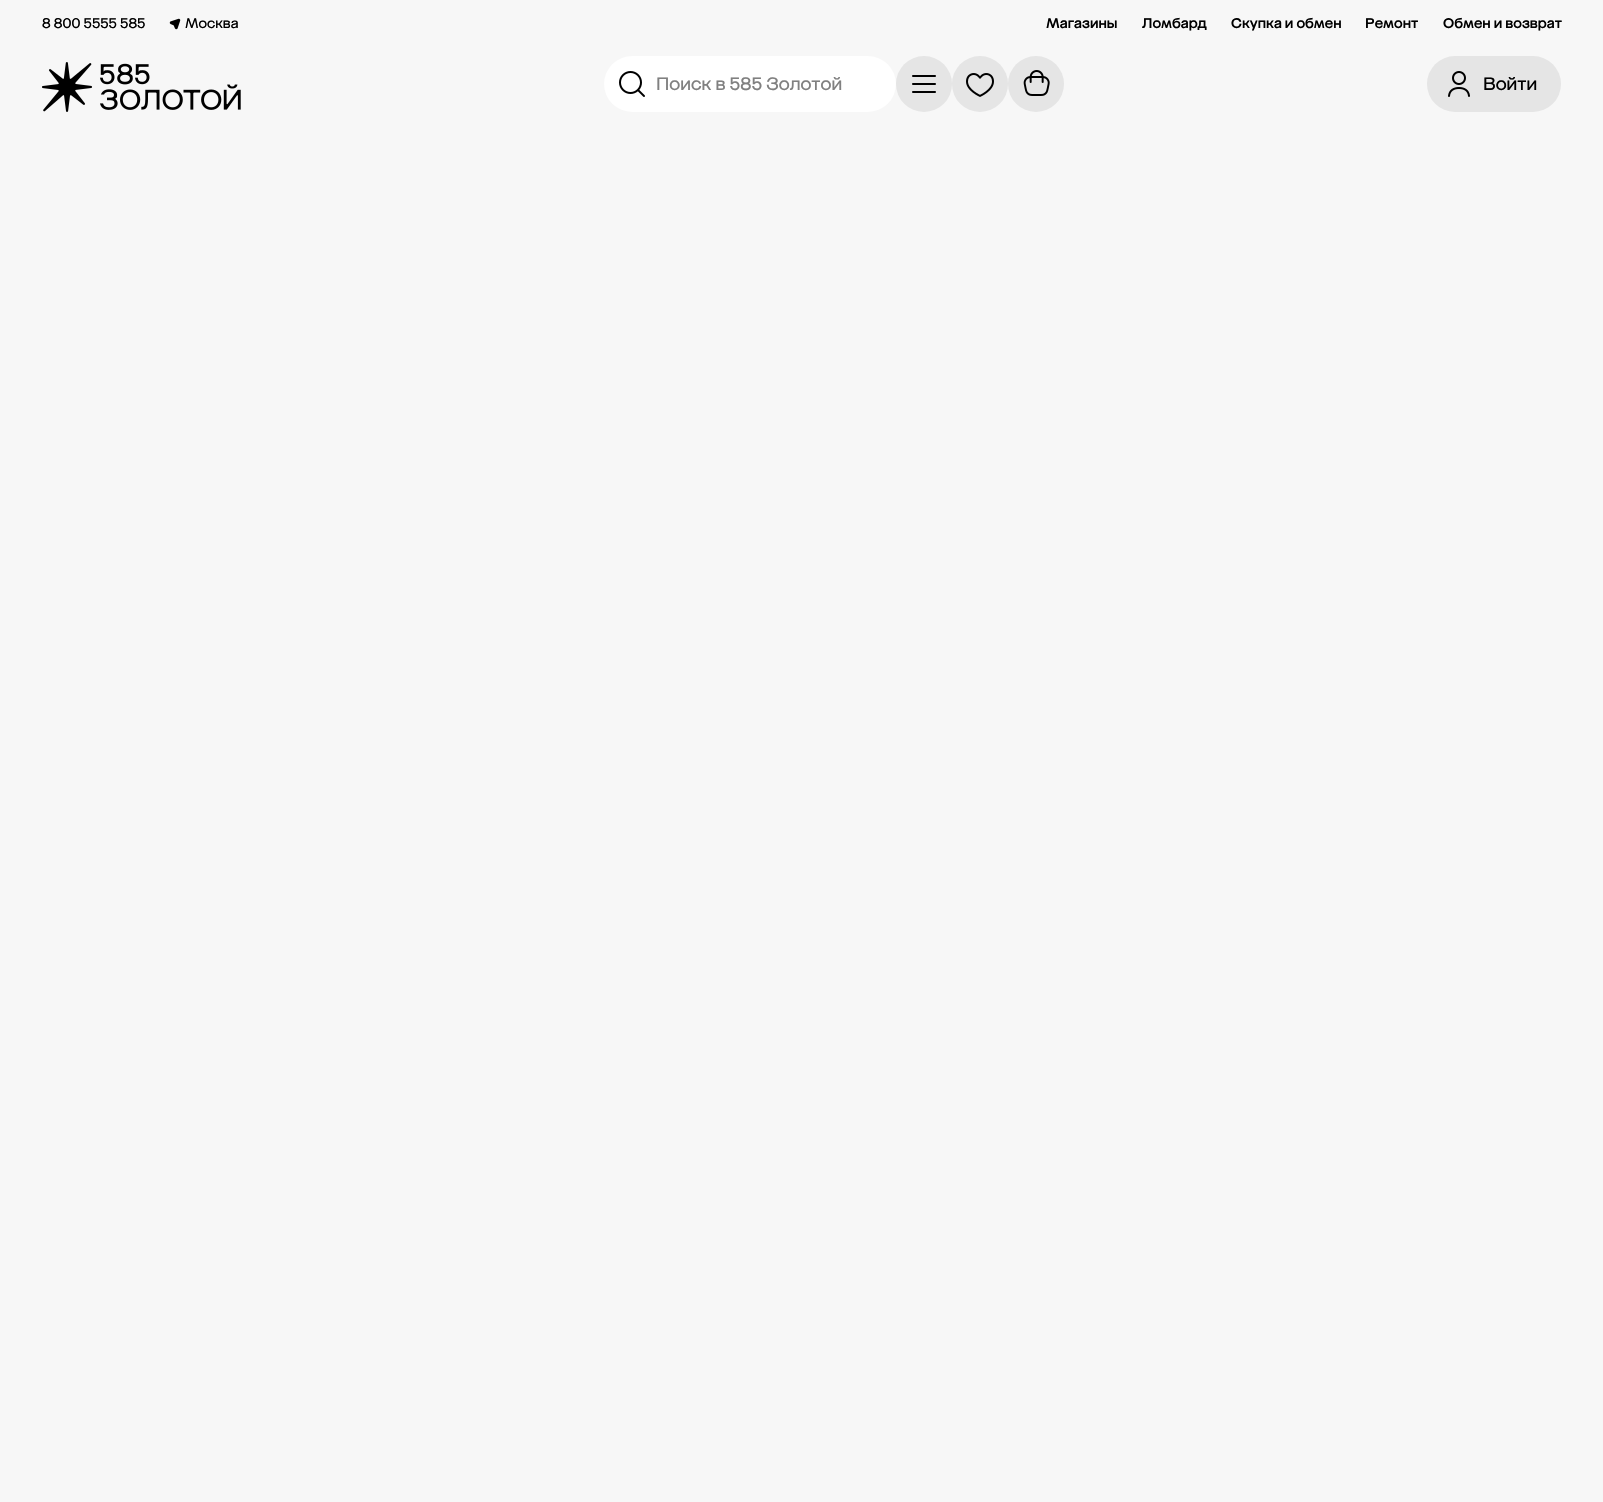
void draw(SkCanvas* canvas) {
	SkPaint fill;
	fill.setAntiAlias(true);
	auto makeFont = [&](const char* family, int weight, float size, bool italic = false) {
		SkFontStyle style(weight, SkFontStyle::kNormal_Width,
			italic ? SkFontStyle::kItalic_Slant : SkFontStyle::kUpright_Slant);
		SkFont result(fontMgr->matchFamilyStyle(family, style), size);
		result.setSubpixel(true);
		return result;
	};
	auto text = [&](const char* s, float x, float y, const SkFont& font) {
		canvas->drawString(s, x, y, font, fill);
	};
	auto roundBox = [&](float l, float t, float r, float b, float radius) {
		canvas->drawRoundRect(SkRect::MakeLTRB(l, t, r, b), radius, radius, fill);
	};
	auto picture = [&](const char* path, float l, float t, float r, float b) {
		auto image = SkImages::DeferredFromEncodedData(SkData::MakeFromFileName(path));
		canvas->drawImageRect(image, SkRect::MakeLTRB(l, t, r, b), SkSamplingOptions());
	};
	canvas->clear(0xFFF7F7F7);
	picture("image0.png", 169, 18, 181, 30);
	picture("image1.png", 42, 62, 241, 112);
	fill.setColor(0xFFFFFFFF);
	roundBox(604, 56, 896, 112, 28);
	picture("image2.png", 619, 71, 645, 97);
	fill.setColor(0xFFE5E5E5);
	canvas->drawCircle(924, 84, 28, fill);
	picture("image3.png", 912, 75, 936, 93);
	canvas->drawCircle(980, 84, 28, fill);
	picture("image4.png", 966, 73, 994, 97);
	canvas->drawCircle(1036, 84, 28, fill);
	picture("image5.png", 1023, 70, 1050, 96);
	roundBox(1427, 56, 1561, 112, 28);
	picture("image6.png", 1448, 71, 1470, 97);
	auto font1 = makeFont("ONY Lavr", 400, 14);
	fill.setColor(0xFF000000);
	text("8 800 5555 585", 42, 28, font1);
	text("Москва", 185, 28, font1);
	auto font2 = makeFont("ONY Lavr", 500, 14);
	text("Магазины", 1046, 28, font2);
	text("Ломбард", 1142, 28, font2);
	text("Скупка и обмен", 1231, 28, font2);
	text("Ремонт", 1365, 28, font2);
	text("Обмен и возврат", 1443, 28, font2);
	auto font3 = makeFont("ONY Lavr", 400, 18);
	fill.setColor(0xFF808080);
	text("Поиск в 585 Золотой", 656, 90, font3);
	fill.setColor(0xFF000000);
	text("Войти", 1483, 90, font3);
}
